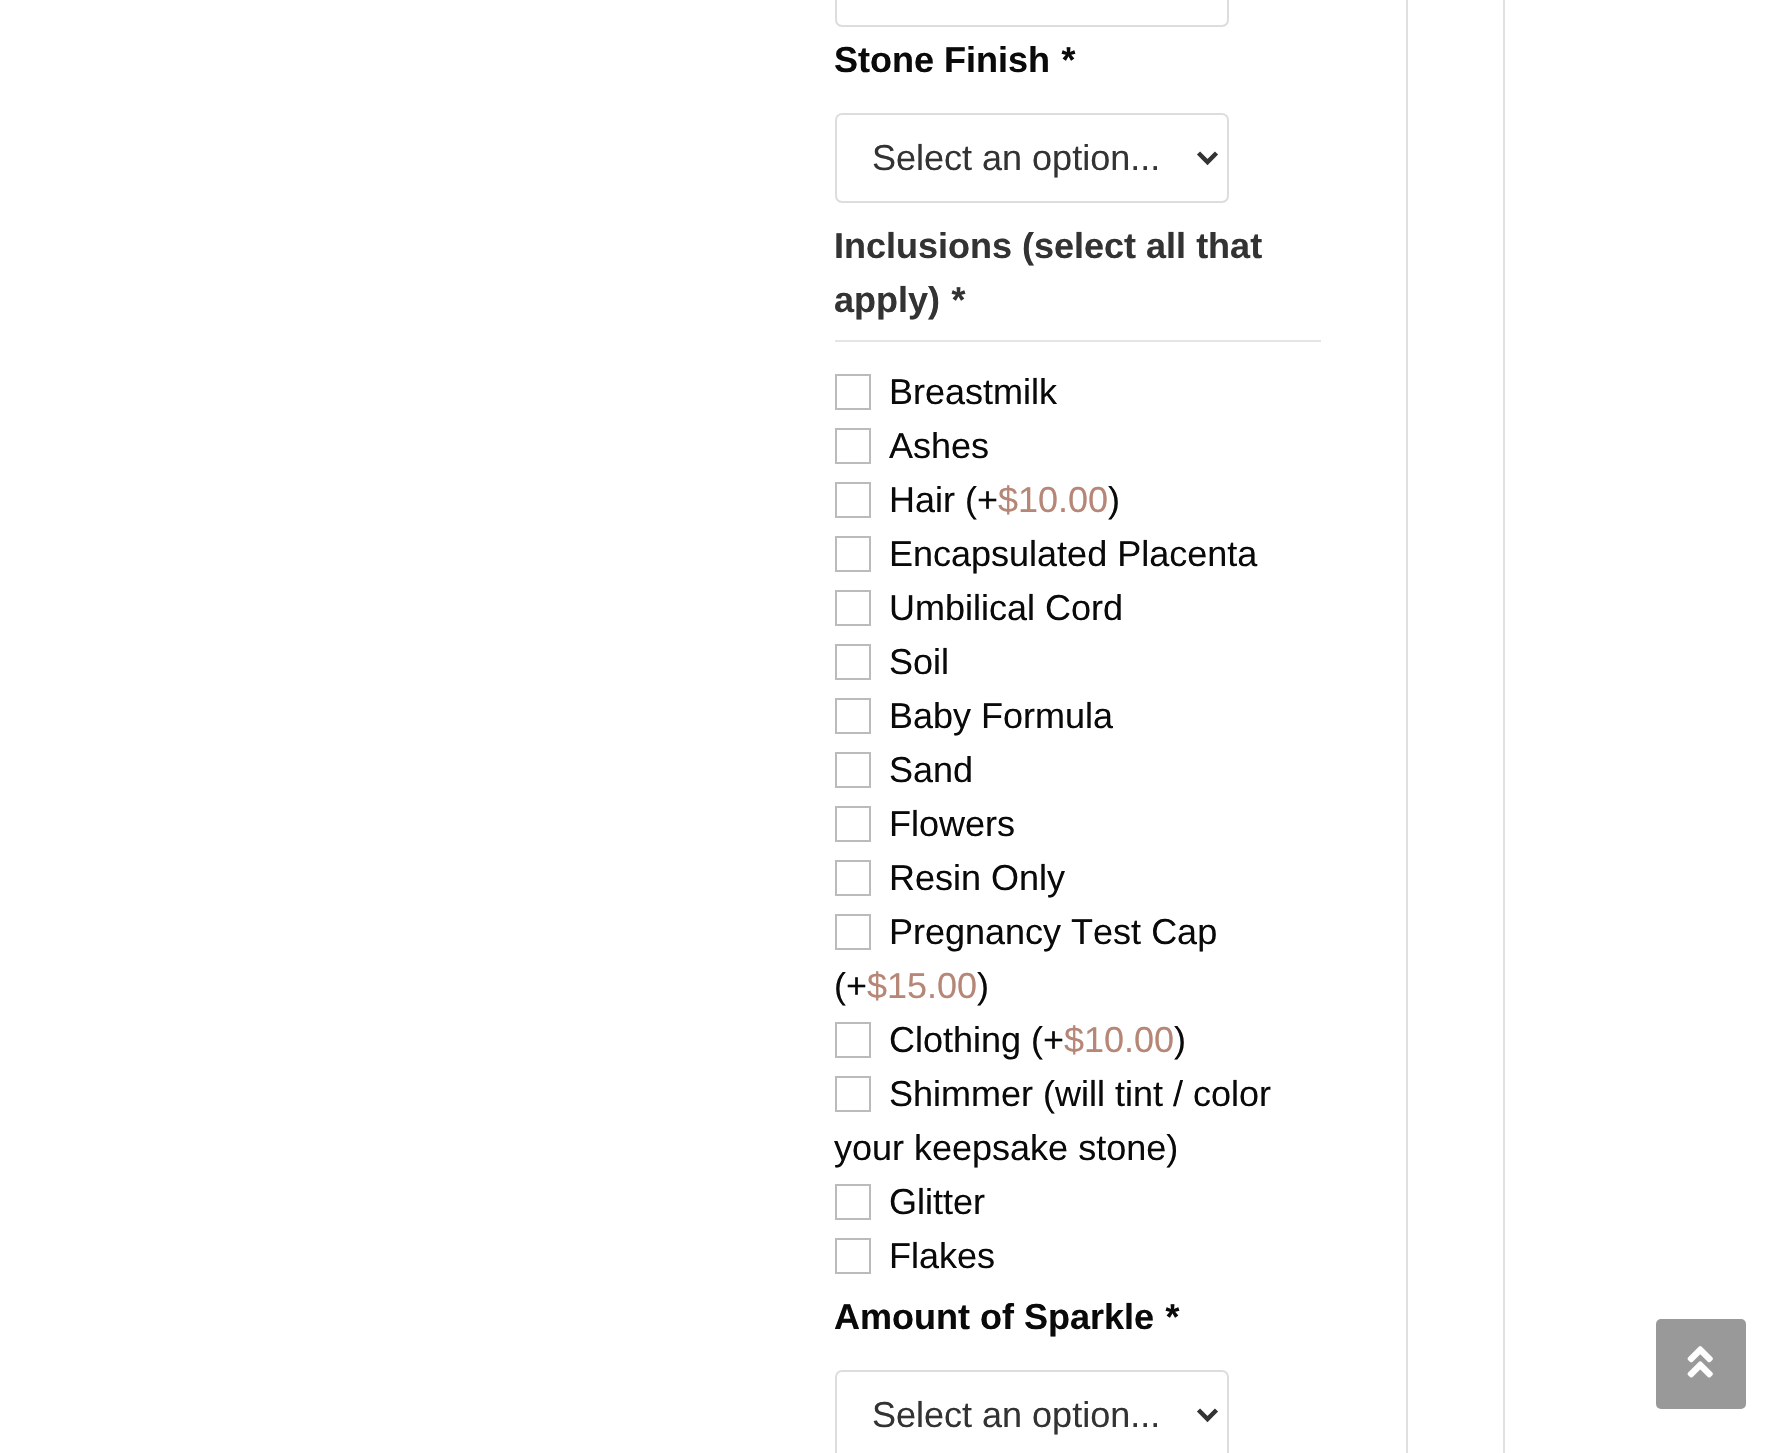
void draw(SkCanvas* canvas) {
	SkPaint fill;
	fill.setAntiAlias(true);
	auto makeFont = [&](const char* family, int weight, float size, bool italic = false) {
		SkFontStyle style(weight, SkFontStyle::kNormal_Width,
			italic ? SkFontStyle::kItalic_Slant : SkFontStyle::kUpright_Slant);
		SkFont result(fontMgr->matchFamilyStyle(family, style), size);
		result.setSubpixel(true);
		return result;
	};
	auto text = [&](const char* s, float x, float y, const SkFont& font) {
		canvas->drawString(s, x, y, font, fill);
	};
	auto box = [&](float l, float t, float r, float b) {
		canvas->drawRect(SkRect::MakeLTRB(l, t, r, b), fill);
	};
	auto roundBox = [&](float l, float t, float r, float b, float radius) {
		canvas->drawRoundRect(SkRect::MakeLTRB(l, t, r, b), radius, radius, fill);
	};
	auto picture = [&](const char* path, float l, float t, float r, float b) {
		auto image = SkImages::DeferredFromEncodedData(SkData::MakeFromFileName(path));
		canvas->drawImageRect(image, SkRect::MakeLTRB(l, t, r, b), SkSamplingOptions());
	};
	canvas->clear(0xFFFFFFFF);
	fill.setStyle(SkPaint::kStroke_Style);
	fill.setStrokeWidth(2);
	fill.setColor(0xFFDDDDDD);
	canvas->drawRoundRect(SkRect::MakeLTRB(836, -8, 1228, 26), 6, 6, fill);
	canvas->drawRoundRect(SkRect::MakeLTRB(836, 114, 1228, 202), 6, 6, fill);
	fill.setStrokeWidth(4.5f);
	fill.setColor(0xFF333333);
	canvas->drawPath(SkPathBuilder().moveTo(1198.5f, 153).lineTo(1207.5f, 162).lineTo(1216.5f, 153).detach(), fill);
	fill.setStyle(SkPaint::kFill_Style);
	fill.setColor(0xFFE5E5E5);
	box(835, 340, 1321, 342);
	fill.setStyle(SkPaint::kStroke_Style);
	fill.setStrokeWidth(2);
	fill.setColor(0xFFBBBBBB);
	canvas->drawRect(SkRect::MakeLTRB(836, 375, 870, 409), fill);
	canvas->drawRect(SkRect::MakeLTRB(836, 429, 870, 463), fill);
	canvas->drawRect(SkRect::MakeLTRB(836, 483, 870, 517), fill);
	canvas->drawRect(SkRect::MakeLTRB(836, 537, 870, 571), fill);
	canvas->drawRect(SkRect::MakeLTRB(836, 591, 870, 625), fill);
	canvas->drawRect(SkRect::MakeLTRB(836, 645, 870, 679), fill);
	canvas->drawRect(SkRect::MakeLTRB(836, 699, 870, 733), fill);
	canvas->drawRect(SkRect::MakeLTRB(836, 753, 870, 787), fill);
	canvas->drawRect(SkRect::MakeLTRB(836, 807, 870, 841), fill);
	canvas->drawRect(SkRect::MakeLTRB(836, 861, 870, 895), fill);
	canvas->drawRect(SkRect::MakeLTRB(836, 915, 870, 949), fill);
	canvas->drawRect(SkRect::MakeLTRB(836, 1023, 870, 1057), fill);
	canvas->drawRect(SkRect::MakeLTRB(836, 1077, 870, 1111), fill);
	canvas->drawRect(SkRect::MakeLTRB(836, 1185, 870, 1219), fill);
	canvas->drawRect(SkRect::MakeLTRB(836, 1239, 870, 1273), fill);
	fill.setColor(0xFFDDDDDD);
	canvas->drawRoundRect(SkRect::MakeLTRB(836, 1371, 1228, 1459), 6, 6, fill);
	fill.setStrokeWidth(4.5f);
	fill.setColor(0xFF333333);
	canvas->drawPath(SkPathBuilder().moveTo(1198.5f, 1410).lineTo(1207.5f, 1419).lineTo(1216.5f, 1410).detach(), fill);
	fill.setStrokeWidth(2);
	fill.setColor(0xFFE0E0E0);
	canvas->drawRect(SkRect::MakeLTRB(1407, -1, 1504, 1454), fill);
	fill.setStyle(SkPaint::kFill_Style);
	fill.setColor(0xFF999999);
	roundBox(1656, 1319, 1746, 1409, 5);
	picture("image0.png", 1687, 1346, 1713, 1378);
	auto font1 = makeFont("Liberation Sans", 700, 36);
	fill.setColor(0xFF0A0A0A);
	text("Stone Finish", 834, 72, font1);
	auto font2 = makeFont("Liberation Sans", 700, 36, true);
	text("*", 1060, 72, font2);
	auto font3 = makeFont("Liberation Sans", 400, 36);
	fill.setColor(0xFF333333);
	text("Select an option...", 872, 170, font3);
	text("Inclusions (select all that", 834, 258, font1);
	text("apply)", 834, 312, font1);
	text("*", 950, 312, font2);
	fill.setColor(0xFF0A0A0A);
	text("Breastmilk", 889, 404, font3);
	text("Ashes", 889, 458, font3);
	text("Hair (+", 889, 512, font3);
	fill.setColor(0xFFB68676);
	text("$10.00", 998, 512, font3);
	fill.setColor(0xFF0A0A0A);
	text(")", 1108, 512, font3);
	text("Encapsulated Placenta", 889, 566, font3);
	text("Umbilical Cord", 889, 620, font3);
	text("Soil", 889, 674, font3);
	text("Baby Formula", 889, 728, font3);
	text("Sand", 889, 782, font3);
	text("Flowers", 889, 836, font3);
	text("Resin Only", 889, 890, font3);
	text("Pregnancy Test Cap", 889, 944, font3);
	text("(+", 834, 998, font3);
	fill.setColor(0xFFB68676);
	text("$15.00", 867, 998, font3);
	fill.setColor(0xFF0A0A0A);
	text(")", 977, 998, font3);
	text("Clothing (+", 889, 1052, font3);
	fill.setColor(0xFFB68676);
	text("$10.00", 1064, 1052, font3);
	fill.setColor(0xFF0A0A0A);
	text(")", 1174, 1052, font3);
	text("Shimmer (will tint / color", 889, 1106, font3);
	text("your keepsake stone)", 834, 1160, font3);
	text("Glitter", 889, 1214, font3);
	text("Flakes", 889, 1268, font3);
	text("Amount of Sparkle", 834, 1329, font1);
	text("*", 1164, 1329, font2);
	fill.setColor(0xFF333333);
	text("Select an option...", 872, 1427, font3);
}
